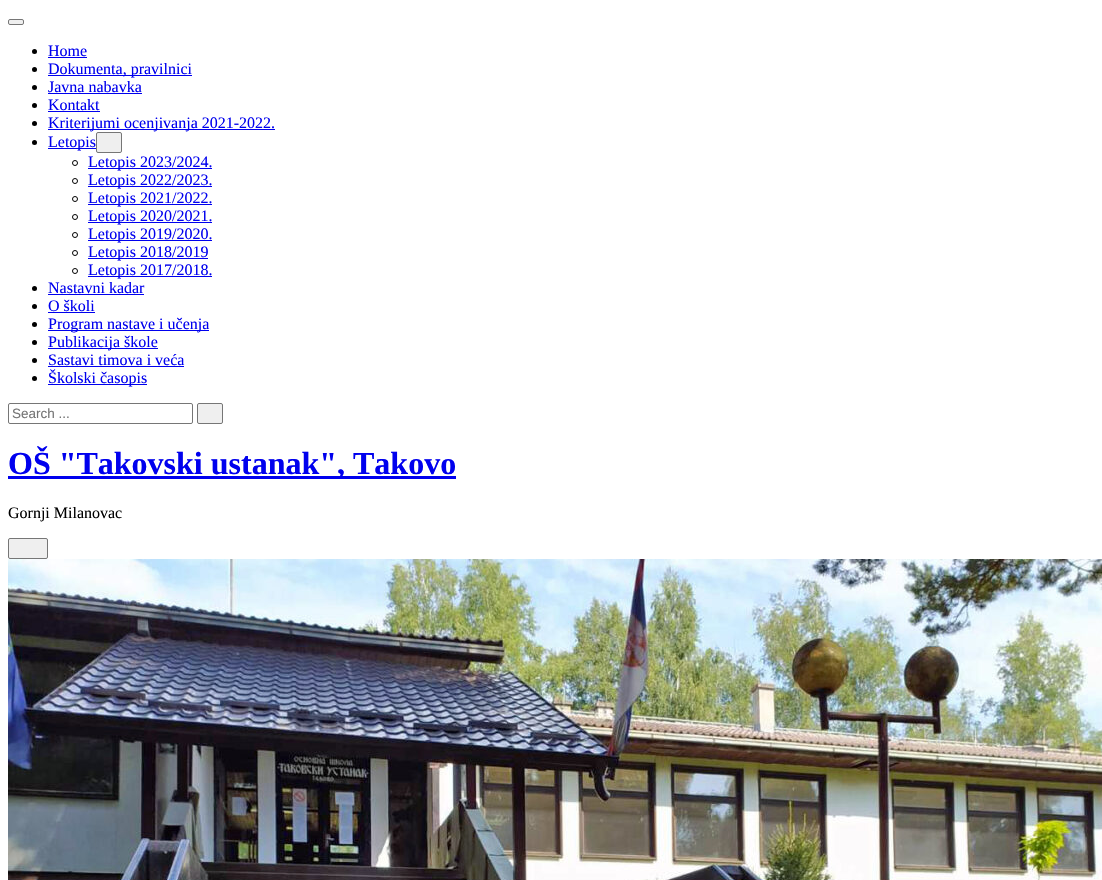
void draw(SkCanvas* canvas) {
	SkPaint fill;
	fill.setAntiAlias(true);
	auto makeFont = [&](const char* family, int weight, float size, bool italic = false) {
		SkFontStyle style(weight, SkFontStyle::kNormal_Width,
			italic ? SkFontStyle::kItalic_Slant : SkFontStyle::kUpright_Slant);
		SkFont result(fontMgr->matchFamilyStyle(family, style), size);
		result.setSubpixel(true);
		return result;
	};
	auto text = [&](const char* s, float x, float y, const SkFont& font) {
		canvas->drawString(s, x, y, font, fill);
	};
	auto box = [&](float l, float t, float r, float b) {
		canvas->drawRect(SkRect::MakeLTRB(l, t, r, b), fill);
	};
	auto picture = [&](const char* path, float l, float t, float r, float b) {
		auto image = SkImages::DeferredFromEncodedData(SkData::MakeFromFileName(path));
		canvas->drawImageRect(image, SkRect::MakeLTRB(l, t, r, b), SkSamplingOptions());
	};
	canvas->clear(0xFFFFFFFF);
	fill.setColor(0xFFEFEFEF);
	canvas->drawRoundRect(SkRect::MakeLTRB(8.5f, 19.5f, 23.5f, 24.5f), 1.5f, 1.5f, fill);
	fill.setStyle(SkPaint::kStroke_Style);
	fill.setStrokeWidth(1);
	fill.setColor(0xFF767676);
	canvas->drawRoundRect(SkRect::MakeLTRB(8.5f, 19.5f, 23.5f, 24.5f), 1.5f, 1.5f, fill);
	fill.setStyle(SkPaint::kFill_Style);
	fill.setColor(0xFF000000);
	canvas->drawCircle(34.5f, 51.5f, 2.5f, fill);
	fill.setColor(0xFF0000EE);
	box(48, 57, 87, 58);
	fill.setColor(0xFF000000);
	canvas->drawCircle(34.5f, 69.5f, 2.5f, fill);
	fill.setColor(0xFF0000EE);
	box(48, 75, 192, 76);
	fill.setColor(0xFF000000);
	canvas->drawCircle(34.5f, 87.5f, 2.5f, fill);
	fill.setColor(0xFF0000EE);
	box(48, 93, 142, 94);
	fill.setColor(0xFF000000);
	canvas->drawCircle(34.5f, 105.5f, 2.5f, fill);
	fill.setColor(0xFF0000EE);
	box(48, 111, 100, 112);
	fill.setColor(0xFF000000);
	canvas->drawCircle(34.5f, 123.5f, 2.5f, fill);
	fill.setColor(0xFF0000EE);
	box(48, 129, 275, 130);
	fill.setColor(0xFF000000);
	canvas->drawCircle(34.5f, 142.5f, 2.5f, fill);
	fill.setColor(0xFF0000EE);
	box(48, 148, 96, 149);
	fill.setColor(0xFFEFEFEF);
	canvas->drawRoundRect(SkRect::MakeLTRB(96.5f, 132.5f, 121.5f, 152.5f), 1.5f, 1.5f, fill);
	fill.setStyle(SkPaint::kStroke_Style);
	fill.setColor(0xFF767676);
	canvas->drawRoundRect(SkRect::MakeLTRB(96.5f, 132.5f, 121.5f, 152.5f), 1.5f, 1.5f, fill);
	fill.setColor(0xFF000000);
	canvas->drawCircle(75, 163, 2.5f, fill);
	fill.setStyle(SkPaint::kFill_Style);
	fill.setColor(0xFF0000EE);
	box(88, 168, 212, 169);
	fill.setStyle(SkPaint::kStroke_Style);
	fill.setColor(0xFF000000);
	canvas->drawCircle(75, 181, 2.5f, fill);
	fill.setStyle(SkPaint::kFill_Style);
	fill.setColor(0xFF0000EE);
	box(88, 186, 212, 187);
	fill.setStyle(SkPaint::kStroke_Style);
	fill.setColor(0xFF000000);
	canvas->drawCircle(75, 199, 2.5f, fill);
	fill.setStyle(SkPaint::kFill_Style);
	fill.setColor(0xFF0000EE);
	box(88, 204, 212, 205);
	fill.setStyle(SkPaint::kStroke_Style);
	fill.setColor(0xFF000000);
	canvas->drawCircle(75, 217, 2.5f, fill);
	fill.setStyle(SkPaint::kFill_Style);
	fill.setColor(0xFF0000EE);
	box(88, 222, 212, 223);
	fill.setStyle(SkPaint::kStroke_Style);
	fill.setColor(0xFF000000);
	canvas->drawCircle(75, 235, 2.5f, fill);
	fill.setStyle(SkPaint::kFill_Style);
	fill.setColor(0xFF0000EE);
	box(88, 240, 212, 241);
	fill.setStyle(SkPaint::kStroke_Style);
	fill.setColor(0xFF000000);
	canvas->drawCircle(75, 253, 2.5f, fill);
	fill.setStyle(SkPaint::kFill_Style);
	fill.setColor(0xFF0000EE);
	box(88, 258, 208, 259);
	fill.setStyle(SkPaint::kStroke_Style);
	fill.setColor(0xFF000000);
	canvas->drawCircle(75, 271, 2.5f, fill);
	fill.setStyle(SkPaint::kFill_Style);
	fill.setColor(0xFF0000EE);
	box(88, 276, 212, 277);
	fill.setColor(0xFF000000);
	canvas->drawCircle(34.5f, 288.5f, 2.5f, fill);
	fill.setColor(0xFF0000EE);
	box(48, 294, 144, 295);
	fill.setColor(0xFF000000);
	canvas->drawCircle(34.5f, 306.5f, 2.5f, fill);
	fill.setColor(0xFF0000EE);
	box(48, 312, 95, 313);
	fill.setColor(0xFF000000);
	canvas->drawCircle(34.5f, 324.5f, 2.5f, fill);
	fill.setColor(0xFF0000EE);
	box(48, 330, 209, 331);
	fill.setColor(0xFF000000);
	canvas->drawCircle(34.5f, 342.5f, 2.5f, fill);
	fill.setColor(0xFF0000EE);
	box(48, 348, 158, 349);
	fill.setColor(0xFF000000);
	canvas->drawCircle(34.5f, 360.5f, 2.5f, fill);
	fill.setColor(0xFF0000EE);
	box(48, 366, 184, 367);
	fill.setColor(0xFF000000);
	canvas->drawCircle(34.5f, 378.5f, 2.5f, fill);
	fill.setColor(0xFF0000EE);
	box(48, 384, 147, 385);
	fill.setStyle(SkPaint::kStroke_Style);
	fill.setColor(0xFF767676);
	canvas->drawRoundRect(SkRect::MakeLTRB(8.5f, 403.5f, 192.5f, 423.5f), 1.5f, 1.5f, fill);
	fill.setStyle(SkPaint::kFill_Style);
	fill.setColor(0xFFEFEFEF);
	canvas->drawRoundRect(SkRect::MakeLTRB(197.5f, 403.5f, 222.5f, 423.5f), 1.5f, 1.5f, fill);
	fill.setStyle(SkPaint::kStroke_Style);
	fill.setColor(0xFF767676);
	canvas->drawRoundRect(SkRect::MakeLTRB(197.5f, 403.5f, 222.5f, 423.5f), 1.5f, 1.5f, fill);
	fill.setStyle(SkPaint::kFill_Style);
	fill.setColor(0xFF0000EE);
	box(8, 476, 456, 479);
	fill.setColor(0xFFEFEFEF);
	canvas->drawRoundRect(SkRect::MakeLTRB(8.5f, 538.5f, 47.5f, 558.5f), 1.5f, 1.5f, fill);
	fill.setStyle(SkPaint::kStroke_Style);
	fill.setColor(0xFF767676);
	canvas->drawRoundRect(SkRect::MakeLTRB(8.5f, 538.5f, 47.5f, 558.5f), 1.5f, 1.5f, fill);
	picture("image0.png", 8, 559, 1102, 880);
	auto font1 = makeFont("Liberation Serif", 400, 16);
	fill.setStyle(SkPaint::kFill_Style);
	fill.setColor(0xFF0000EE);
	text("Home", 48, 56, font1);
	text("Dokumenta, pravilnici", 48, 74, font1);
	text("Javna nabavka", 48, 92, font1);
	text("Kontakt", 48, 110, font1);
	text("Kriterijumi ocenjivanja 2021-2022.", 48, 128, font1);
	text("Letopis", 48, 147, font1);
	text("Letopis 2023/2024.", 88, 167, font1);
	text("Letopis 2022/2023.", 88, 185, font1);
	text("Letopis 2021/2022.", 88, 203, font1);
	text("Letopis 2020/2021.", 88, 221, font1);
	text("Letopis 2019/2020.", 88, 239, font1);
	text("Letopis 2018/2019", 88, 257, font1);
	text("Letopis 2017/2018.", 88, 275, font1);
	text("Nastavni kadar", 48, 293, font1);
	text("O školi", 48, 311, font1);
	text("Program nastave i učenja", 48, 329, font1);
	text("Publikacija škole", 48, 347, font1);
	text("Sastavi timova i veća", 48, 365, font1);
	text("Školski časopis", 48, 383, font1);
	auto font2 = makeFont("Liberation Sans", 400, 13.5f);
	fill.setColor(0xFF757575);
	text("Search ...", 12, 418, font2);
	auto font3 = makeFont("Liberation Serif", 700, 32);
	fill.setColor(0xFF0000EE);
	text("OŠ \"Takovski ustanak\", Takovo", 8, 474, font3);
	fill.setColor(0xFF000000);
	text("Gornji Milanovac", 8, 518, font1);
}
